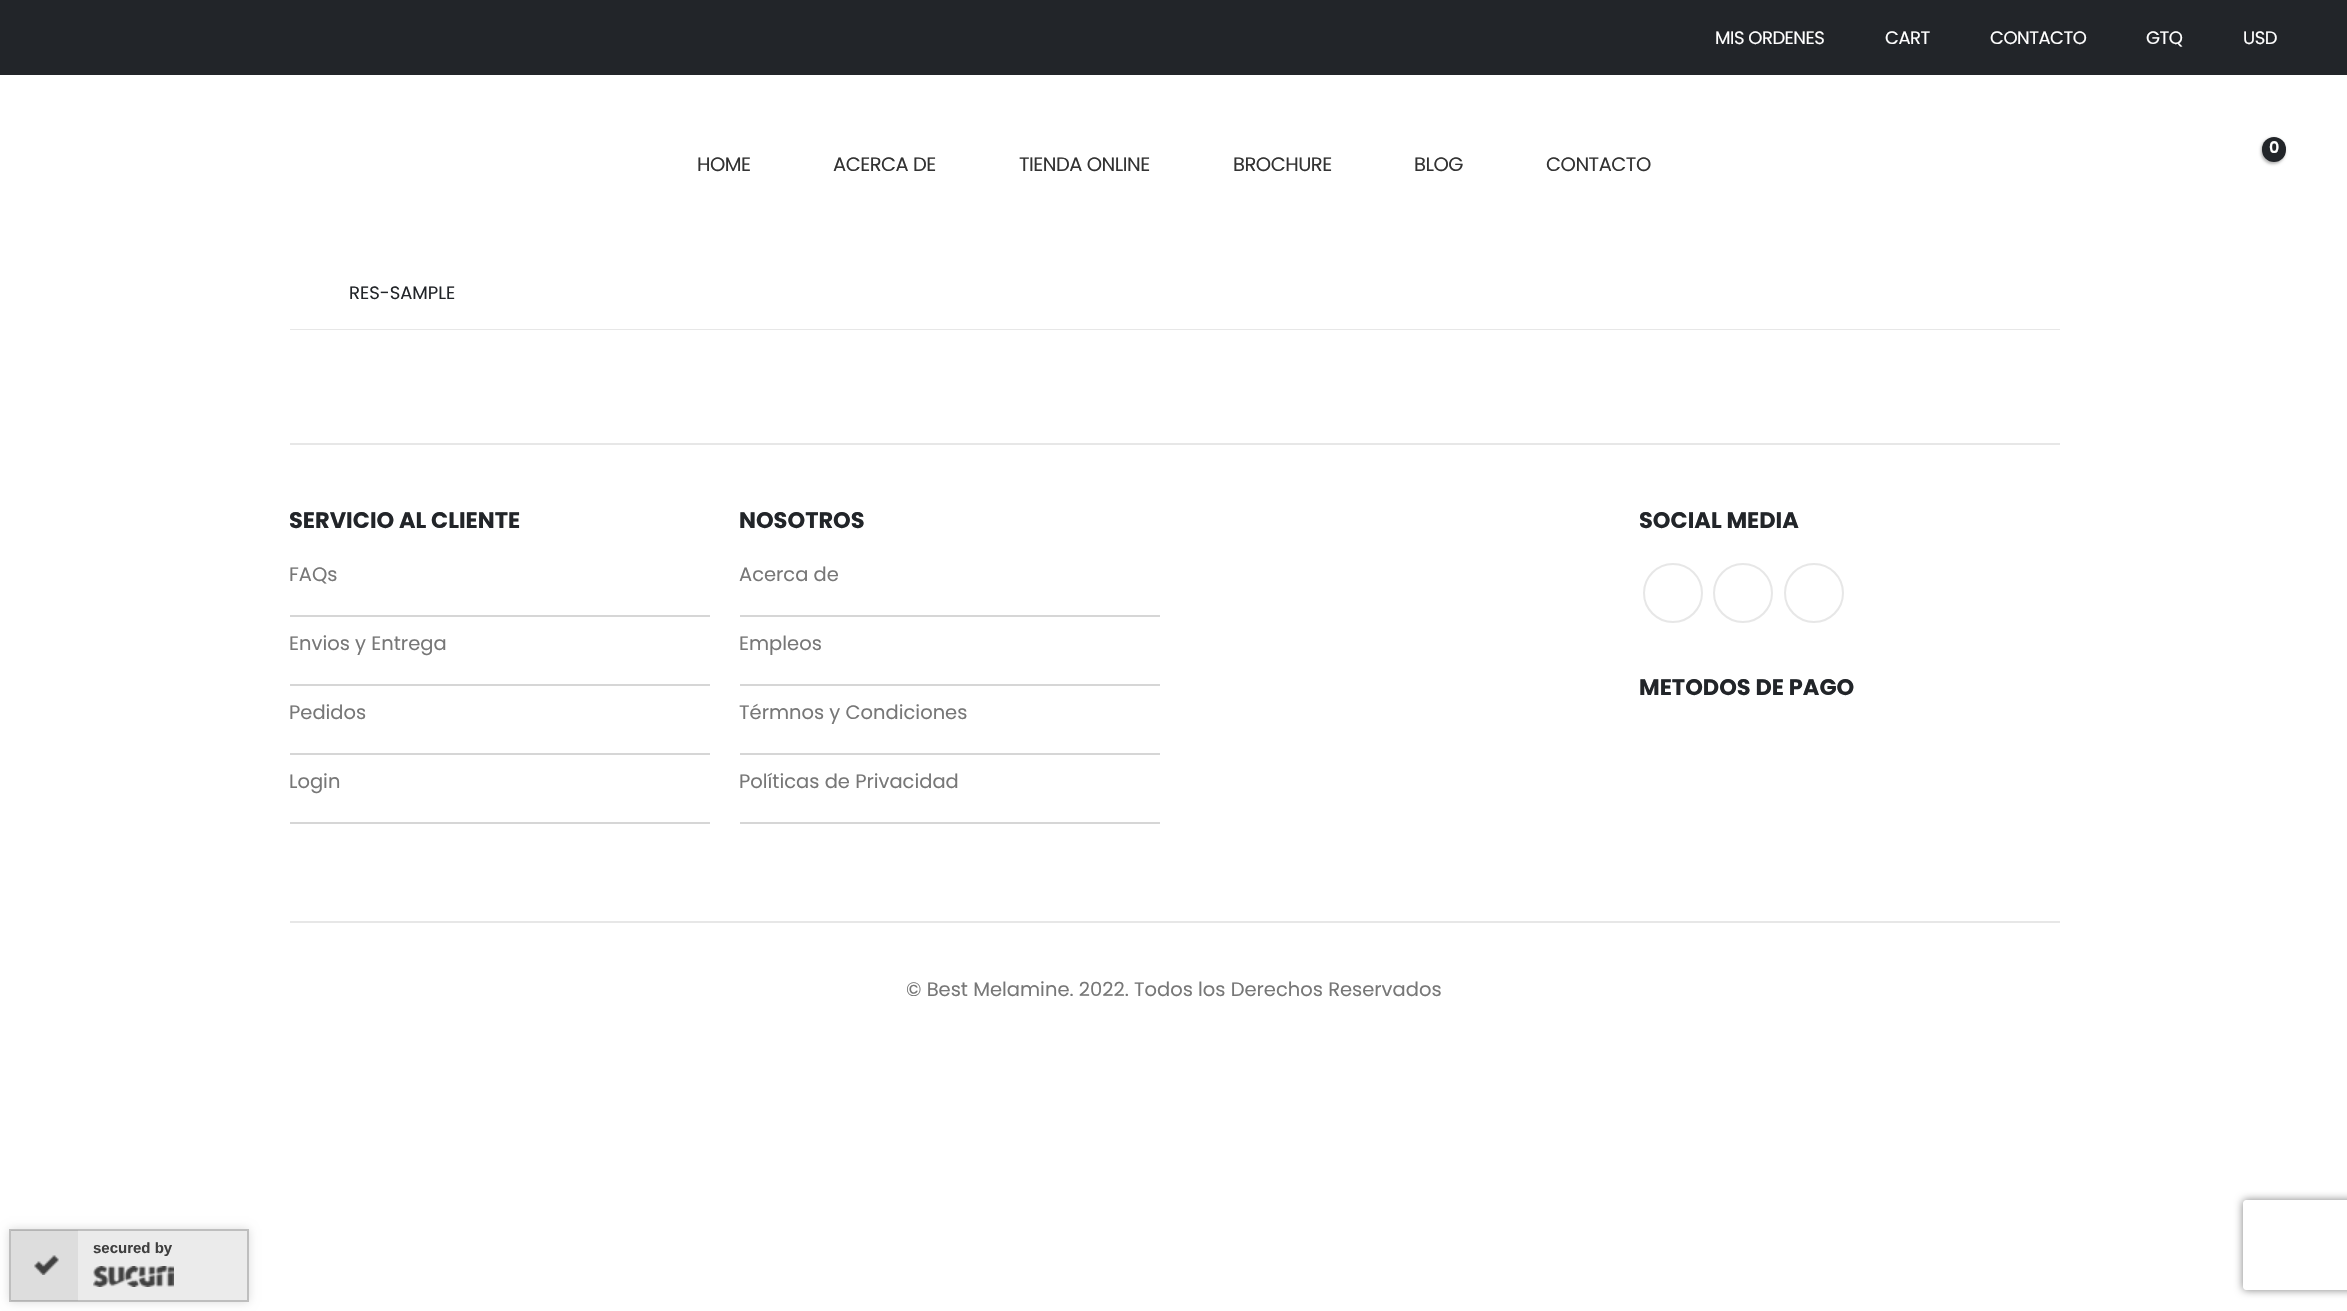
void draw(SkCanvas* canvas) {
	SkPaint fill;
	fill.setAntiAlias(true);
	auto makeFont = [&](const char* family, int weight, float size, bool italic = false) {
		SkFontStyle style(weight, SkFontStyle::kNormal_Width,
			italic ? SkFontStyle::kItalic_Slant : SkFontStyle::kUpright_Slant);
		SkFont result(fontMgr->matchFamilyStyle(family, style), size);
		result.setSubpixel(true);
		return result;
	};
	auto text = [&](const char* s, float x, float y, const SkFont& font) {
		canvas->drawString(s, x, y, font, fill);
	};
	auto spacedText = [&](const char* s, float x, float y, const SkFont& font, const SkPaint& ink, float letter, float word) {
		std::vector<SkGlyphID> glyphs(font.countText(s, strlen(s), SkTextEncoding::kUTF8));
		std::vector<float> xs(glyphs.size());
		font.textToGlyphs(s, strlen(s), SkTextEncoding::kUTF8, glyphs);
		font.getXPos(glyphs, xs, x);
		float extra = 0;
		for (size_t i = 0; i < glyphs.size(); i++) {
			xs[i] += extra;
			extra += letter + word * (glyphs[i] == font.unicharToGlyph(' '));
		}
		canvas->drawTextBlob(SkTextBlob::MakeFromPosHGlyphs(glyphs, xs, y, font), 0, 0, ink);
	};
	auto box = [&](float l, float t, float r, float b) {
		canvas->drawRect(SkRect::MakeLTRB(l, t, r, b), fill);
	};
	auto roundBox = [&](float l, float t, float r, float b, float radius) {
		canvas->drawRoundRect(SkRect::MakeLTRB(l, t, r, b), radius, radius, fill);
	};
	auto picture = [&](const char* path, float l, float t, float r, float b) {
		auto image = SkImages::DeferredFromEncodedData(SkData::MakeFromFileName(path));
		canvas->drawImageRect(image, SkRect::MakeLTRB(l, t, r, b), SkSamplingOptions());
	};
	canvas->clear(0xFFFFFFFF);
	fill.setColor(0xFF222529);
	box(0, 0, 2347, 75);
	fill.setColor(0x4D000000);
	fill.setMaskFilter(SkMaskFilter::MakeBlur(kNormal_SkBlurStyle, 1.5f));
	canvas->drawRoundRect(SkRect::MakeLTRB(2261, 138, 2285, 164), 12, 12, fill);
	fill.setMaskFilter(nullptr);
	fill.setColor(0xFF222529);
	roundBox(2262, 137, 2286, 162, 12);
	fill.setColor(0xFFE7E7E7);
	box(290, 329, 2060, 330);
	box(290, 443, 2060, 445);
	fill.setColor(0xFFD6D6D6);
	box(290, 822, 710, 824);
	box(290, 615, 710, 617);
	box(290, 684, 710, 686);
	box(290, 753, 710, 755);
	box(740, 822, 1160, 824);
	box(740, 615, 1160, 617);
	box(740, 684, 1160, 686);
	box(740, 753, 1160, 755);
	fill.setStyle(SkPaint::kStroke_Style);
	fill.setStrokeWidth(2);
	fill.setColor(0xFFE7E7E7);
	canvas->drawCircle(1673, 593, 29, fill);
	canvas->drawCircle(1743, 593, 29, fill);
	canvas->drawCircle(1814, 593, 29, fill);
	fill.setStyle(SkPaint::kFill_Style);
	box(290, 921, 2060, 923);
	fill.setColor(0x24000000);
	fill.setMaskFilter(SkMaskFilter::MakeBlur(kNormal_SkBlurStyle, 4.5f));
	canvas->drawRect(SkRect::MakeLTRB(9, 1229, 249, 1302), fill);
	fill.setMaskFilter(nullptr);
	fill.setColor(0xFFEBEBEB);
	canvas->drawRect(SkRect::MakeLTRB(10, 1230, 248, 1301), fill);
	fill.setStyle(SkPaint::kStroke_Style);
	fill.setColor(0xFFBEBEBE);
	canvas->drawRect(SkRect::MakeLTRB(10, 1230, 248, 1301), fill);
	fill.setStyle(SkPaint::kFill_Style);
	fill.setColor(0x14404040);
	box(11, 1230, 78, 1301);
	picture("image0.png", 34, 1255, 59, 1275);
	picture("image1.png", 93, 1266, 174, 1287);
	canvas->save();
	canvas->clipPath(SkPathBuilder(SkPathFillType::kEvenOdd).moveTo(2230, 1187).lineTo(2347, 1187).lineTo(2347, 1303).lineTo(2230, 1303).close().moveTo(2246, 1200).lineTo(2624, 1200).cubicTo(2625.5f, 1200, 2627, 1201.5f, 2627, 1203).lineTo(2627, 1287).cubicTo(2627, 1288.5f, 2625.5f, 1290, 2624, 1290).lineTo(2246, 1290).cubicTo(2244.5f, 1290, 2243, 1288.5f, 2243, 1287).lineTo(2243, 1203).cubicTo(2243, 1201.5f, 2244.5f, 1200, 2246, 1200).close().detach(), true);
	fill.setColor(0xFF808080);
	fill.setMaskFilter(SkMaskFilter::MakeBlur(kNormal_SkBlurStyle, 4));
	canvas->drawRoundRect(SkRect::MakeLTRB(2243, 1200, 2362, 1290), 3, 3, fill);
	fill.setMaskFilter(nullptr);
	canvas->restore();
	auto font1 = makeFont("Poppins", 400, 18);
	fill.setColor(0xFFFFFFFF);
	spacedText("MIS ORDENES", 1715, 44, font1, fill, -0.5f, 0);
	spacedText("CART", 1885, 44, font1, fill, -0.5f, 0);
	spacedText("CONTACTO", 1990, 44, font1, fill, -0.5f, 0);
	spacedText("GTQ", 2146, 44, font1, fill, -0.5f, 0);
	spacedText("USD", 2243, 44, font1, fill, -0.5f, 0);
	auto font2 = makeFont("Poppins", 600, 16);
	text("0", 2269, 153, font2);
	auto font3 = makeFont("Poppins", 400, 19.5f);
	fill.setColor(0xFF333333);
	spacedText("HOME", 697, 171, font3, fill, -0.5f, 0);
	spacedText("ACERCA DE", 833, 171, font3, fill, -0.5f, 0);
	spacedText("TIENDA ONLINE", 1019, 171, font3, fill, -0.5f, 0);
	spacedText("BROCHURE", 1233, 171, font3, fill, -0.5f, 0);
	spacedText("BLOG", 1414, 171, font3, fill, -0.5f, 0);
	spacedText("CONTACTO", 1546, 171, font3, fill, -0.5f, 0);
	fill.setColor(0xFF222529);
	text("RES-SAMPLE", 349, 299, font1);
	auto font4 = makeFont("Poppins", 700, 22.5f);
	text("SERVICIO AL CLIENTE", 289, 528, font4);
	fill.setColor(0xFF777777);
	text("FAQs", 289, 581, font3);
	text("Envios y Entrega", 289, 650, font3);
	text("Pedidos", 289, 719, font3);
	text("Login", 289, 788, font3);
	fill.setColor(0xFF222529);
	text("NOSOTROS", 739, 528, font4);
	fill.setColor(0xFF777777);
	text("Acerca de", 739, 581, font3);
	text("Empleos", 739, 650, font3);
	text("Térmnos y Condiciones", 739, 719, font3);
	text("Políticas de Privacidad", 739, 788, font3);
	fill.setColor(0xFF222529);
	text("SOCIAL MEDIA", 1639, 528, font4);
	text("METODOS DE PAGO", 1639, 695, font4);
	fill.setColor(0xFF777777);
	text("© Best Melamine. 2022. Todos los Derechos Reservados", 906, 996, font3);
	auto font5 = makeFont("Liberation Sans", 700, 15);
	fill.setColor(0xFF3F3F3F);
	text("secured by", 93, 1253, font5);
}
